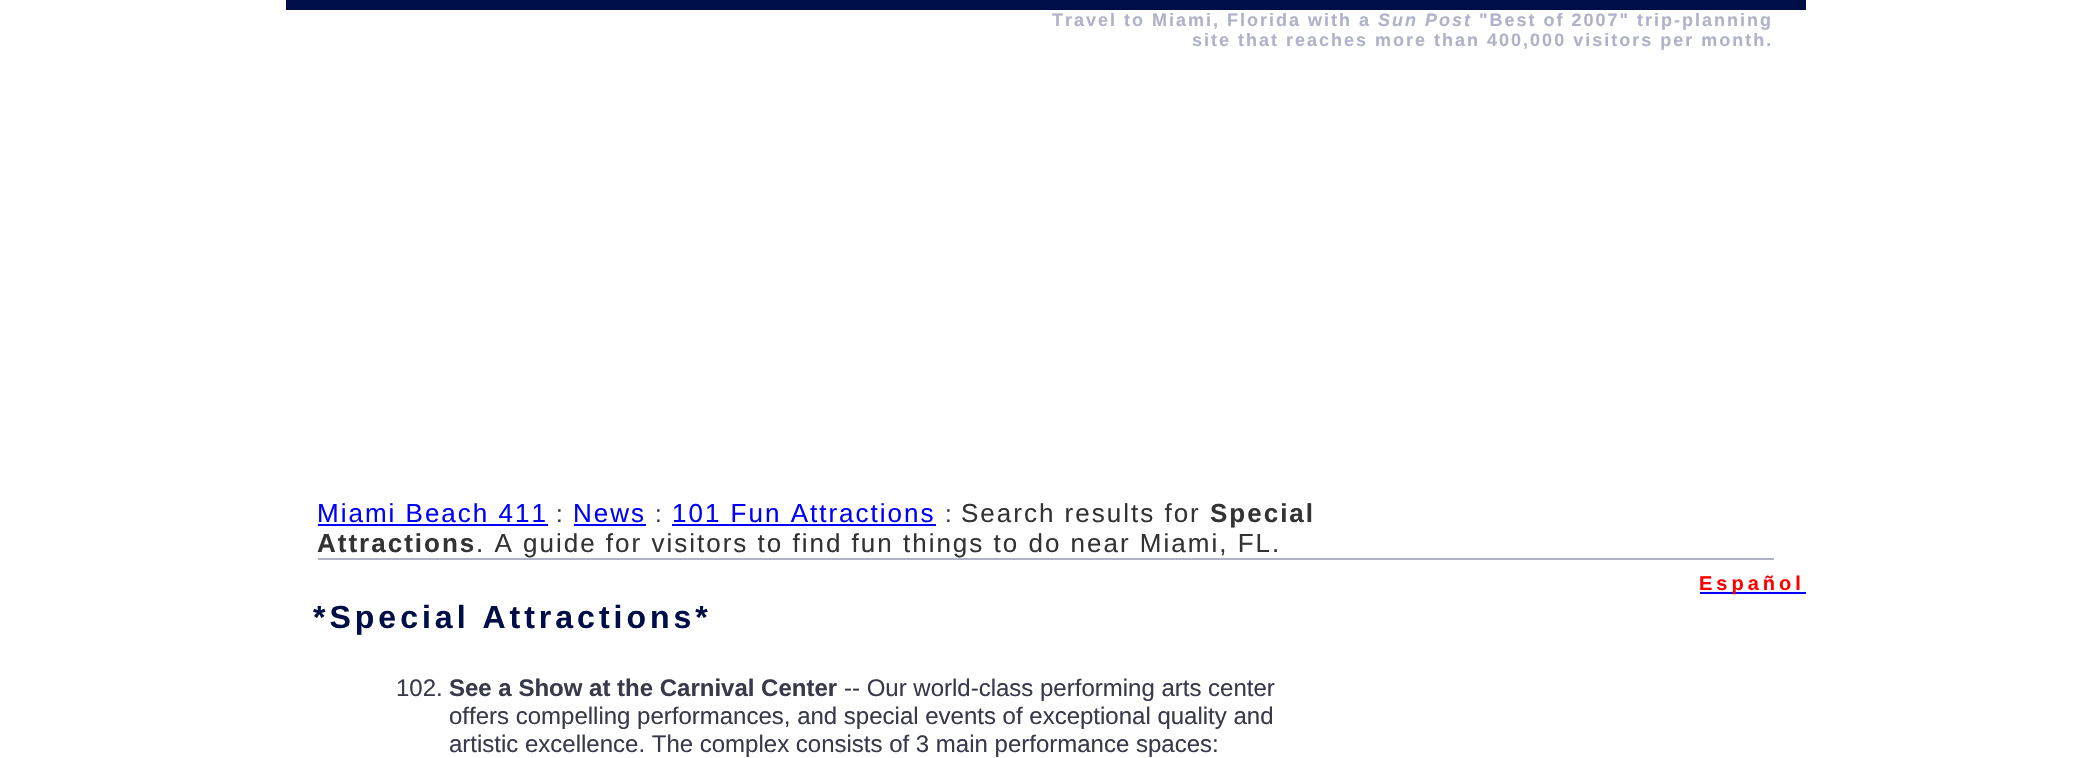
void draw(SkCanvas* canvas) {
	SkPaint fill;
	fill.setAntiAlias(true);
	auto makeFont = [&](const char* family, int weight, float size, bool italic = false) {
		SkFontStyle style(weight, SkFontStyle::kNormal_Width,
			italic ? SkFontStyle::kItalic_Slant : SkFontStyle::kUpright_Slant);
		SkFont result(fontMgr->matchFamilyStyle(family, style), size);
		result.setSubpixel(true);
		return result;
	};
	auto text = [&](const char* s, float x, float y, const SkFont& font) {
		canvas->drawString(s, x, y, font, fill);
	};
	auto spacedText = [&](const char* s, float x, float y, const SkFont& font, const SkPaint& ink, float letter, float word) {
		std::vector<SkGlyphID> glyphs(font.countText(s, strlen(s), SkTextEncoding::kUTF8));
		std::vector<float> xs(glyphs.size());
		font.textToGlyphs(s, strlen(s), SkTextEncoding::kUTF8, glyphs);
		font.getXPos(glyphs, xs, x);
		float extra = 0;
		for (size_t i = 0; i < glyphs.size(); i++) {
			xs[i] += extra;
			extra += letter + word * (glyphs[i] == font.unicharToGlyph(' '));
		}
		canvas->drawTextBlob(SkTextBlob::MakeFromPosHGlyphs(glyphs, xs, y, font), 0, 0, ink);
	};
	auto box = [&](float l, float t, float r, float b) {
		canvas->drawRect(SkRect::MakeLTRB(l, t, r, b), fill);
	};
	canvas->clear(0xFFFFFFFF);
	fill.setColor(0xFF000E48);
	box(286, 0, 1806, 10);
	fill.setColor(0xFF0000FF);
	box(318, 524, 548, 526);
	box(574, 524, 646, 526);
	box(672, 524, 936, 526);
	fill.setColor(0xFFAFB2C9);
	box(318, 558, 1774, 560);
	fill.setColor(0xFF0000FF);
	box(1700, 592, 1806, 594);
	auto font1 = makeFont("Liberation Sans", 700, 18);
	fill.setColor(0xFFAFB2C9);
	spacedText("Travel to Miami, Florida with a", 1052, 26, font1, fill, 2, 0);
	auto font2 = makeFont("Liberation Sans", 700, 18, true);
	spacedText("Sun Post", 1378, 26, font2, fill, 2, 0);
	spacedText("\"Best of 2007\" trip-planning", 1479, 26, font1, fill, 2, 0);
	spacedText("site that reaches more than 400,000 visitors per month.", 1192, 46, font1, fill, 2, 0);
	auto font3 = makeFont("Liberation Sans", 400, 26);
	fill.setColor(0xFF0000FF);
	spacedText("Miami Beach 411", 317, 522, font3, fill, 2, 0);
	auto font4 = makeFont("Liberation Sans", 400, 24);
	fill.setColor(0xFF38394B);
	spacedText(":", 556, 522, font4, fill, 2, 0);
	fill.setColor(0xFF0000FF);
	spacedText("News", 573, 522, font3, fill, 2, 0);
	fill.setColor(0xFF38394B);
	spacedText(":", 655, 522, font4, fill, 2, 0);
	fill.setColor(0xFF0000FF);
	spacedText("101 Fun Attractions", 672, 522, font3, fill, 2, 0);
	fill.setColor(0xFF38394B);
	spacedText(":", 945, 522, font4, fill, 2, 0);
	fill.setColor(0xFF333333);
	spacedText("Search results for", 961, 522, font3, fill, 2, 0);
	auto font5 = makeFont("Liberation Sans", 700, 26);
	spacedText("Special", 1210, 522, font5, fill, 2, 0);
	spacedText("Attractions", 317, 552, font5, fill, 2, 0);
	spacedText(". A guide for visitors to find fun things to do near Miami, FL.", 476, 552, font3, fill, 2, 0);
	auto font6 = makeFont("Liberation Sans", 700, 20);
	fill.setColor(0xFFFF0000);
	spacedText("Español", 1699, 590, font6, fill, 4, 0);
	auto font7 = makeFont("Liberation Sans", 700, 32);
	fill.setColor(0xFF000E48);
	spacedText("*Special Attractions*", 313, 628, font7, fill, 4, 0);
	fill.setColor(0xFF38394B);
	text("102.", 396, 696, font4);
	auto font8 = makeFont("Liberation Sans", 700, 24);
	text("See a Show at the Carnival Center", 449, 696, font8);
	text("-- Our world-class performing arts center", 844, 696, font4);
	text("offers compelling performances, and special events of exceptional quality and", 449, 724, font4);
	text("artistic excellence. The complex consists of 3 main performance spaces:", 449, 752, font4);
}
